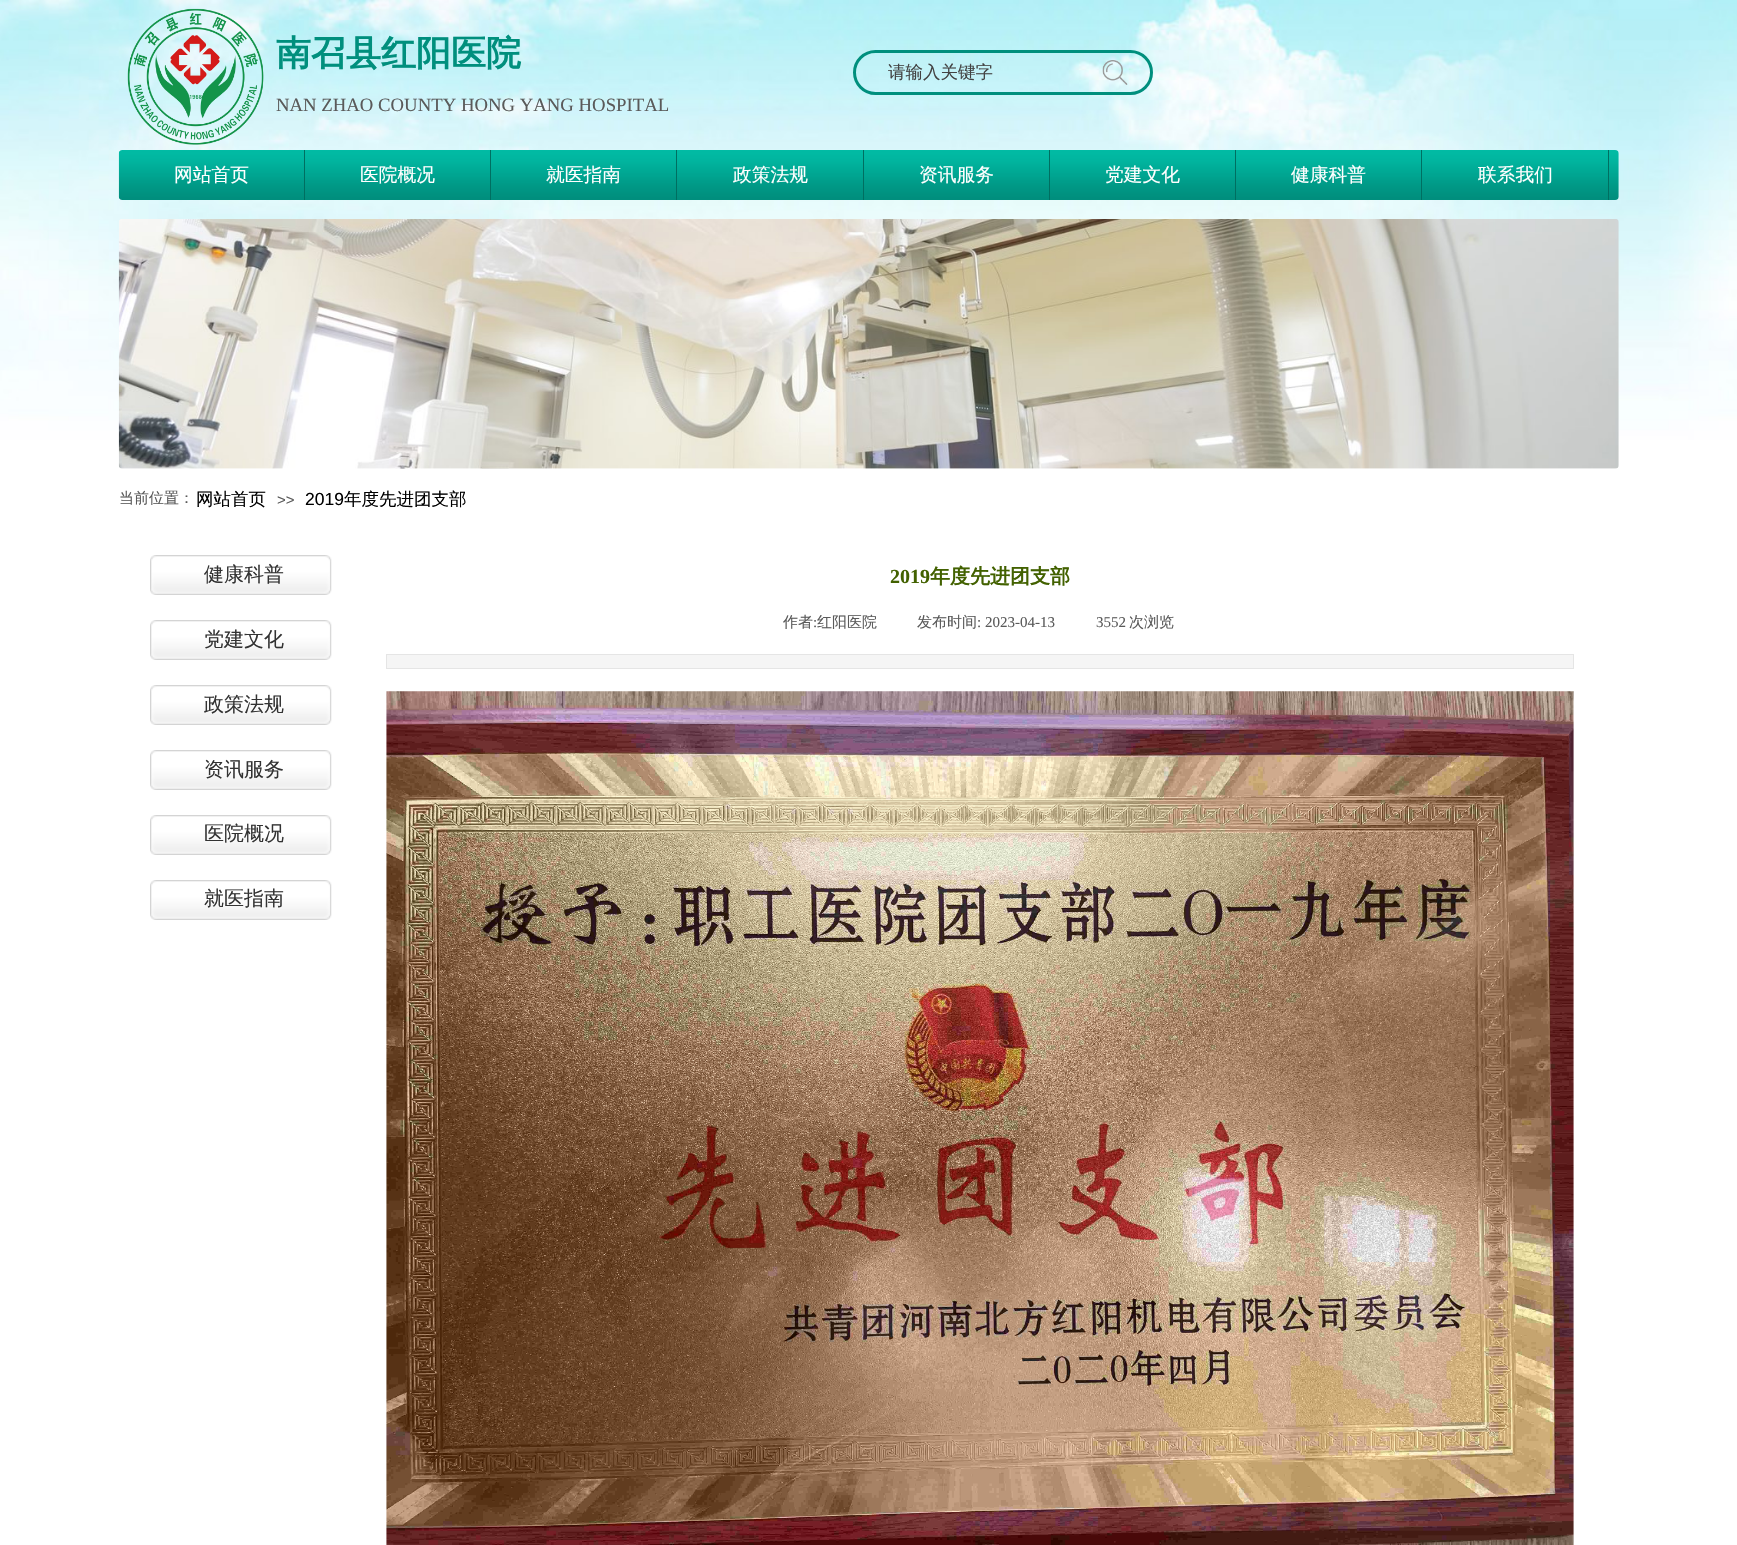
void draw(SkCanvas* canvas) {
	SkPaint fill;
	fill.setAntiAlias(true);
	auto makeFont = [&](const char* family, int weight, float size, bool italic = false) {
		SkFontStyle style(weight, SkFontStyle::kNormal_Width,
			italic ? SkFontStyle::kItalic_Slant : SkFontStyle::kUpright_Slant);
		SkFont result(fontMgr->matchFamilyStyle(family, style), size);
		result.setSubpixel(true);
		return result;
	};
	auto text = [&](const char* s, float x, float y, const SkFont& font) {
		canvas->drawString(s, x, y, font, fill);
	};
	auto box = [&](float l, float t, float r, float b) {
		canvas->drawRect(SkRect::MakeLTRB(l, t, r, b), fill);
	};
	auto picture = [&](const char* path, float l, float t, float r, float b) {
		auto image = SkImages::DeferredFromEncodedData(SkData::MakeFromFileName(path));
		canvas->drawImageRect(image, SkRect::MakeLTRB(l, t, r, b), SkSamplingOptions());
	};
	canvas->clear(0xFFFFFFFF);
	picture("image0.png", 0, 0, 1737, 440);
	picture("image1.png", 127, 8, 264, 145);
	fill.setStyle(SkPaint::kStroke_Style);
	fill.setStrokeWidth(3);
	fill.setColor(0xFF008F7D);
	canvas->drawRoundRect(SkRect::MakeLTRB(854.5f, 51.5f, 1151.5f, 93.5f), 21, 21, fill);
	picture("image2.png", 1102, 60, 1128, 85);
	picture("image3.png", 118, 150, 1619, 200);
	fill.setStyle(SkPaint::kFill_Style);
	fill.setColor(0xFF006F61);
	box(304, 150, 305, 200);
	box(490, 150, 491, 200);
	box(676, 150, 677, 200);
	box(863, 150, 864, 200);
	box(1049, 150, 1050, 200);
	box(1235, 150, 1236, 200);
	box(1421, 150, 1422, 200);
	box(1608, 150, 1609, 200);
	picture("image4.png", 118, 219, 1619, 469);
	picture("image5.png", 150, 555, 332, 595);
	picture("image6.png", 150, 620, 332, 660);
	picture("image6.png", 150, 685, 332, 725);
	picture("image6.png", 150, 750, 332, 790);
	picture("image6.png", 150, 815, 332, 855);
	picture("image6.png", 150, 880, 332, 920);
	fill.setColor(0xFFF5F5F5);
	canvas->drawRect(SkRect::MakeLTRB(386.5f, 654.5f, 1573.5f, 668.5f), fill);
	fill.setStyle(SkPaint::kStroke_Style);
	fill.setStrokeWidth(1);
	fill.setColor(0xFFE5E5E5);
	canvas->drawRect(SkRect::MakeLTRB(386.5f, 654.5f, 1573.5f, 668.5f), fill);
	picture("image7.png", 386, 691, 1574, 1545);
	auto font1 = makeFont("WenQuanYi Zen Hei", 700, 35);
	fill.setStyle(SkPaint::kFill_Style);
	fill.setColor(0xFF008F7D);
	text("南召县红阳医院", 276, 65, font1);
	auto font2 = makeFont("WenQuanYi Zen Hei", 500, 17.5f);
	fill.setColor(0xFF434343);
	text("请输入关键字", 888, 78, font2);
	auto font3 = makeFont("Liberation Serif", 400, 18.75f);
	fill.setColor(0xFF5A5A5A);
	text("NAN ZHAO COUNTY HONG YANG HOSPITAL", 276, 111, font3);
	auto font4 = makeFont("WenQuanYi Zen Hei", 500, 18.75f);
	fill.setColor(0xFFFFFFFF);
	text("网站首页", 174, 181, font4);
	text("医院概况", 360, 181, font4);
	text("就医指南", 546, 181, font4);
	text("政策法规", 733, 181, font4);
	text("资讯服务", 919, 181, font4);
	text("党建文化", 1105, 181, font4);
	text("健康科普", 1291, 181, font4);
	text("联系我们", 1478, 181, font4);
	auto font5 = makeFont("WenQuanYi Zen Hei", 500, 15);
	fill.setColor(0xFF5A5A5A);
	text("当前位置：", 119, 503, font5);
	fill.setColor(0xFF000000);
	text("网站首页", 196, 505, font2);
	auto font6 = makeFont("Liberation Sans", 400, 15);
	fill.setColor(0xFF5A5A5A);
	text(">>", 277, 505, font6);
	auto font7 = makeFont("Liberation Sans", 400, 17.5f);
	fill.setColor(0xFF000000);
	text("2019", 305, 505, font7);
	text("年度先进团支部", 344, 505, font2);
	auto font8 = makeFont("WenQuanYi Zen Hei", 500, 20);
	fill.setColor(0xFF333333);
	text("健康科普", 204, 581, font8);
	text("党建文化", 204, 646, font8);
	text("政策法规", 204, 711, font8);
	text("资讯服务", 204, 776, font8);
	text("医院概况", 204, 840, font8);
	text("就医指南", 204, 905, font8);
	auto font9 = makeFont("Liberation Serif", 700, 20);
	fill.setColor(0xFF426100);
	text("2019", 890, 583, font9);
	auto font10 = makeFont("WenQuanYi Zen Hei", 700, 20);
	text("年度先进团支部", 930, 583, font10);
	fill.setColor(0xFF5A5A5A);
	text("作者", 783, 627, font5);
	auto font11 = makeFont("Liberation Serif", 400, 15);
	text(":", 813, 627, font11);
	text("红阳医院", 817, 627, font5);
	text("发布时间", 917, 627, font5);
	text(": 2023-04-13", 977, 627, font11);
	text("3552", 1096, 627, font11);
	text("次浏览", 1129, 627, font5);
}
